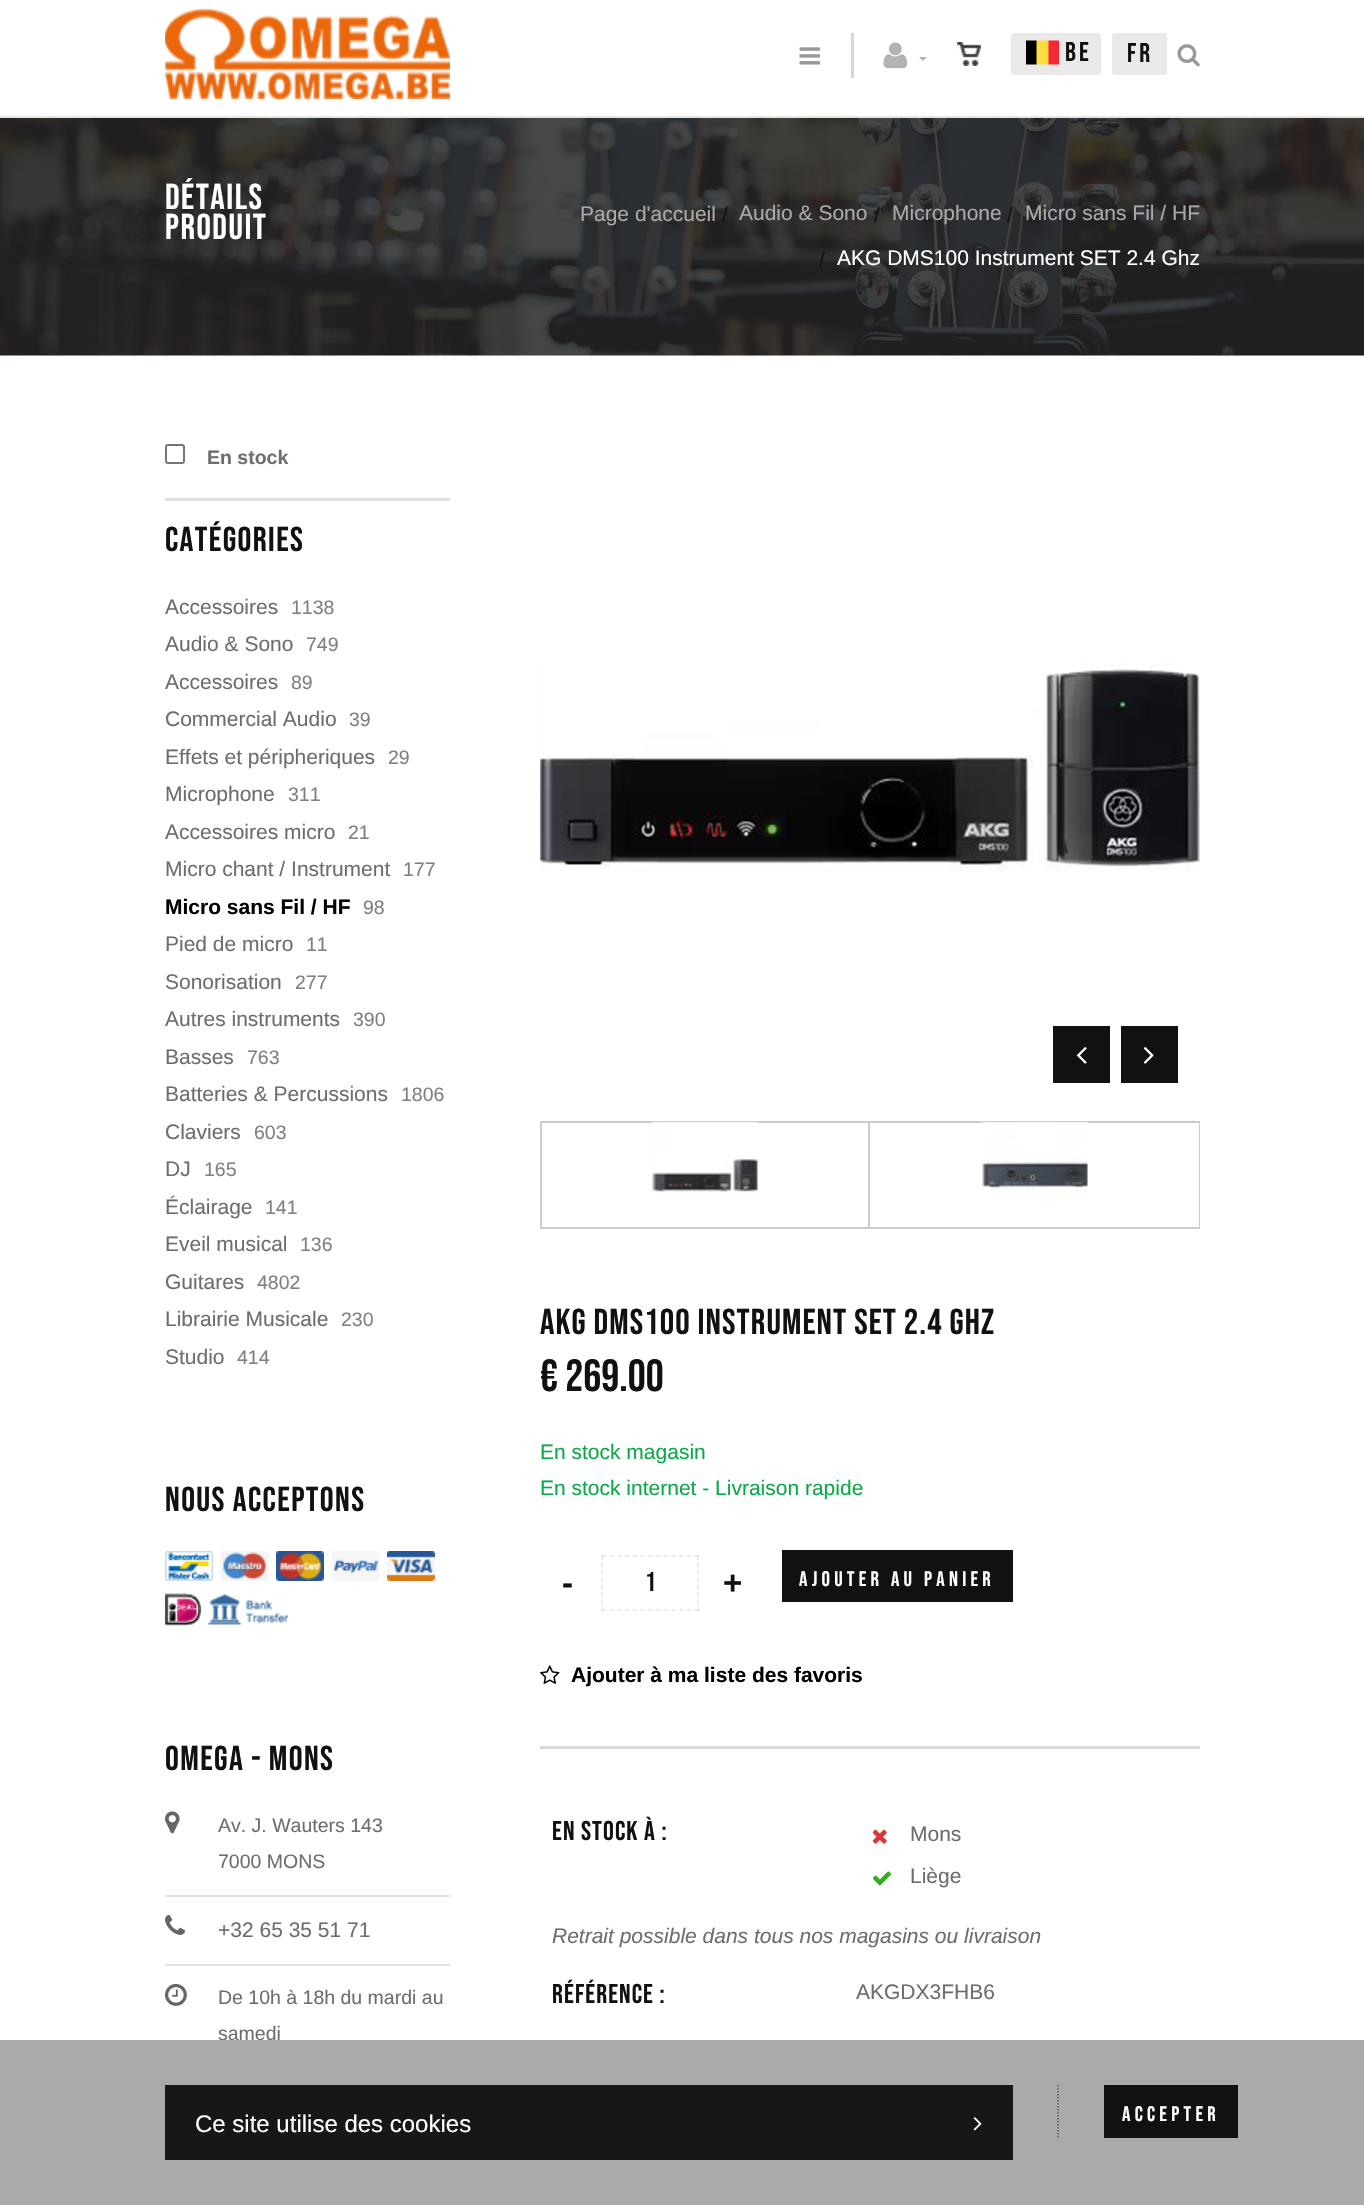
void draw(SkCanvas* canvas) {
	SkPaint fill;
	fill.setAntiAlias(true);
	auto makeFont = [&](const char* family, int weight, float size, bool italic = false) {
		SkFontStyle style(weight, SkFontStyle::kNormal_Width,
			italic ? SkFontStyle::kItalic_Slant : SkFontStyle::kUpright_Slant);
		SkFont result(fontMgr->matchFamilyStyle(family, style), size);
		result.setSubpixel(true);
		return result;
	};
	auto text = [&](const char* s, float x, float y, const SkFont& font) {
		canvas->drawString(s, x, y, font, fill);
	};
	auto spacedText = [&](const char* s, float x, float y, const SkFont& font, const SkPaint& ink, float letter, float word) {
		std::vector<SkGlyphID> glyphs(font.countText(s, strlen(s), SkTextEncoding::kUTF8));
		std::vector<float> xs(glyphs.size());
		font.textToGlyphs(s, strlen(s), SkTextEncoding::kUTF8, glyphs);
		font.getXPos(glyphs, xs, x);
		float extra = 0;
		for (size_t i = 0; i < glyphs.size(); i++) {
			xs[i] += extra;
			extra += letter + word * (glyphs[i] == font.unicharToGlyph(' '));
		}
		canvas->drawTextBlob(SkTextBlob::MakeFromPosHGlyphs(glyphs, xs, y, font), 0, 0, ink);
	};
	auto box = [&](float l, float t, float r, float b) {
		canvas->drawRect(SkRect::MakeLTRB(l, t, r, b), fill);
	};
	auto roundBox = [&](float l, float t, float r, float b, float radius) {
		canvas->drawRoundRect(SkRect::MakeLTRB(l, t, r, b), radius, radius, fill);
	};
	auto picture = [&](const char* path, float l, float t, float r, float b) {
		auto image = SkImages::DeferredFromEncodedData(SkData::MakeFromFileName(path));
		canvas->drawImageRect(image, SkRect::MakeLTRB(l, t, r, b), SkSamplingOptions());
	};
	canvas->clear(0xFFFFFFFF);
	fill.setColor(0xFFE6E6E6);
	box(0, 116, 1364, 118);
	picture("image0.png", 165, 8, 450, 99);
	picture("image1.png", 799, 47, 821, 65);
	fill.setColor(0xFFD6D6D6);
	box(851, 33, 854, 78);
	picture("image2.png", 883, 42, 908, 69);
	picture("image3.png", 919, 57, 927, 61);
	picture("image4.png", 957, 42, 981, 66);
	fill.setColor(0xFFEAE8E8);
	roundBox(1011, 33, 1101, 75, 3);
	picture("image5.png", 1026, 40, 1059, 65);
	roundBox(1112, 33, 1167, 75, 3);
	picture("image6.png", 1177, 44, 1200, 67);
	fill.setColor(0xFFF5F5F5);
	box(0, 355, 1364, 356);
	picture("image7.png", 0, 118, 1364, 356);
	fill.setStyle(SkPaint::kStroke_Style);
	fill.setStrokeWidth(2);
	fill.setColor(0xFF767676);
	canvas->drawRoundRect(SkRect::MakeLTRB(166, 445, 184, 463), 2, 2, fill);
	fill.setStyle(SkPaint::kFill_Style);
	fill.setColor(0xFFE0E0E0);
	box(165, 498, 450, 501);
	picture("image8.png", 165, 1551, 213, 1581);
	picture("image9.png", 220, 1551, 269, 1581);
	picture("image10.png", 276, 1551, 324, 1581);
	picture("image11.png", 331, 1551, 380, 1581);
	picture("image12.png", 387, 1551, 435, 1581);
	picture("image13.png", 165, 1593, 201, 1626);
	picture("image14.png", 208, 1594, 288, 1625);
	box(165, 1895, 450, 1897);
	picture("image15.png", 165, 1811, 180, 1834);
	box(165, 1964, 450, 1966);
	picture("image16.png", 165, 1915, 185, 1935);
	picture("image17.png", 165, 1984, 187, 2006);
	picture("image18.png", 540, 663, 1200, 872);
	fill.setColor(0xFF111111);
	box(1053, 1026, 1110, 1083);
	picture("image19.png", 1076, 1047, 1087, 1064);
	box(1121, 1026, 1178, 1083);
	picture("image20.png", 1143, 1047, 1154, 1064);
	fill.setStyle(SkPaint::kStroke_Style);
	fill.setColor(0xFFCCCCCC);
	canvas->drawRect(SkRect::MakeLTRB(541, 1122, 869, 1228), fill);
	picture("image21.png", 652, 1122, 758, 1194);
	fill.setStyle(SkPaint::kFill_Style);
	box(870, 1121, 1200, 1123);
	box(1199, 1121, 1200, 1229);
	box(870, 1227, 1200, 1229);
	picture("image22.png", 982, 1122, 1088, 1194);
	fill.setStyle(SkPaint::kStroke_Style);
	fill.setStrokeWidth(1.5f);
	fill.setColor(0xFFE8E8E8);
	fill.setPathEffect(SkDashPathEffect::Make({{4.5f, 3.25f}}, 0));
	canvas->drawPath(SkPathBuilder().moveTo(601.5f, 1556).lineTo(699, 1556).detach(), fill);
	fill.setPathEffect(nullptr);
	fill.setColor(0x17000000);
	fill.setPathEffect(SkDashPathEffect::Make({{4.5f, 2.79f}}, 0));
	canvas->drawPath(SkPathBuilder().moveTo(698, 1555.5f).lineTo(698, 1611).detach(), fill);
	fill.setPathEffect(nullptr);
	fill.setPathEffect(SkDashPathEffect::Make({{4.5f, 3.25f}}, 0));
	canvas->drawPath(SkPathBuilder().moveTo(601.5f, 1610).lineTo(699, 1610).detach(), fill);
	fill.setPathEffect(nullptr);
	fill.setPathEffect(SkDashPathEffect::Make({{4.5f, 2.79f}}, 0));
	canvas->drawPath(SkPathBuilder().moveTo(602, 1555.5f).lineTo(602, 1611).detach(), fill);
	fill.setPathEffect(nullptr);
	fill.setStyle(SkPaint::kFill_Style);
	fill.setColor(0xFF111111);
	box(782, 1550, 1013, 1602);
	picture("image23.png", 540, 1665, 560, 1684);
	fill.setColor(0xFFD9D9D9);
	box(540, 1746, 1200, 1749);
	picture("image24.png", 872, 1829, 887, 1844);
	picture("image25.png", 872, 1871, 892, 1886);
	auto font1 = makeFont("Bebas Neue", 400, 27);
	fill.setColor(0xFF111111);
	spacedText("BE", 1065, 61, font1, fill, 3, 0);
	spacedText("FR", 1127, 62, font1, fill, 3, 0);
	auto font2 = makeFont("Bebas Neue", 400, 36);
	fill.setColor(0xFFFFFFFF);
	spacedText("Détails", 165, 209, font2, fill, 1.5f, 0);
	spacedText("produit", 165, 239, font2, fill, 1.5f, 0);
	auto font3 = makeFont("Liberation Sans", 400, 21);
	fill.setColor(0xFFAAAAAA);
	text("Page d'accueil", 580, 221, font3);
	fill.setColor(0xFF111111);
	text("/", 722, 222, font3);
	fill.setColor(0xFFAAAAAA);
	text("Audio & Sono", 739, 220, font3);
	fill.setColor(0xFF111111);
	text("/", 874, 222, font3);
	fill.setColor(0xFFAAAAAA);
	text("Microphone", 892, 220, font3);
	fill.setColor(0xFF111111);
	text("/", 1007, 222, font3);
	fill.setColor(0xFFAAAAAA);
	text("Micro sans Fil / HF", 1025, 220, font3);
	fill.setColor(0xFF111111);
	text("/", 819, 267, font3);
	fill.setColor(0xFFFFFFFF);
	text("AKG DMS100 Instrument SET 2.4 Ghz", 837, 265, font3);
	auto font4 = makeFont("Liberation Sans", 700, 19.5f);
	fill.setColor(0xFF6D6D6D);
	text("En stock", 207, 464, font4);
	auto font5 = makeFont("Bebas Neue", 400, 34.5f);
	fill.setColor(0xFF111111);
	spacedText("CATÉGORIES", 165, 551, font5, fill, 1.4f, 0);
	fill.setColor(0xFF6D6D6D);
	text("Accessoires", 165, 614, font3);
	auto font6 = makeFont("Liberation Sans", 400, 19.5f);
	fill.setColor(0xFF808080);
	text("1138", 291, 614, font6);
	fill.setColor(0xFF6D6D6D);
	text("Audio & Sono", 165, 651, font3);
	fill.setColor(0xFF808080);
	text("749", 306, 651, font6);
	fill.setColor(0xFF6D6D6D);
	text("Accessoires", 165, 689, font3);
	fill.setColor(0xFF808080);
	text("89", 291, 689, font6);
	fill.setColor(0xFF6D6D6D);
	text("Commercial Audio", 165, 726, font3);
	fill.setColor(0xFF808080);
	text("39", 349, 726, font6);
	fill.setColor(0xFF6D6D6D);
	text("Effets et péripheriques", 165, 764, font3);
	fill.setColor(0xFF808080);
	text("29", 388, 764, font6);
	fill.setColor(0xFF6D6D6D);
	text("Microphone", 165, 801, font3);
	fill.setColor(0xFF808080);
	text("311", 288, 801, font6);
	fill.setColor(0xFF6D6D6D);
	text("Accessoires micro", 165, 839, font3);
	fill.setColor(0xFF808080);
	text("21", 348, 839, font6);
	fill.setColor(0xFF6D6D6D);
	text("Micro chant / Instrument", 165, 876, font3);
	fill.setColor(0xFF808080);
	text("177", 403, 876, font6);
	auto font7 = makeFont("Liberation Sans", 700, 21);
	fill.setColor(0xFF000000);
	text("Micro sans Fil / HF", 165, 914, font7);
	fill.setColor(0xFF808080);
	text("98", 363, 914, font6);
	fill.setColor(0xFF6D6D6D);
	text("Pied de micro", 165, 951, font3);
	fill.setColor(0xFF808080);
	text("11", 306, 951, font6);
	fill.setColor(0xFF6D6D6D);
	text("Sonorisation", 165, 989, font3);
	fill.setColor(0xFF808080);
	text("277", 295, 989, font6);
	fill.setColor(0xFF6D6D6D);
	text("Autres instruments", 165, 1026, font3);
	fill.setColor(0xFF808080);
	text("390", 353, 1026, font6);
	fill.setColor(0xFF6D6D6D);
	text("Basses", 165, 1064, font3);
	fill.setColor(0xFF808080);
	text("763", 247, 1064, font6);
	fill.setColor(0xFF6D6D6D);
	text("Batteries & Percussions", 165, 1101, font3);
	fill.setColor(0xFF808080);
	text("1806", 401, 1101, font6);
	fill.setColor(0xFF6D6D6D);
	text("Claviers", 165, 1139, font3);
	fill.setColor(0xFF808080);
	text("603", 254, 1139, font6);
	fill.setColor(0xFF6D6D6D);
	text("DJ", 165, 1176, font3);
	fill.setColor(0xFF808080);
	text("165", 204, 1176, font6);
	fill.setColor(0xFF6D6D6D);
	text("Éclairage", 165, 1214, font3);
	fill.setColor(0xFF808080);
	text("141", 265, 1214, font6);
	fill.setColor(0xFF6D6D6D);
	text("Eveil musical", 165, 1251, font3);
	fill.setColor(0xFF808080);
	text("136", 300, 1251, font6);
	fill.setColor(0xFF6D6D6D);
	text("Guitares", 165, 1289, font3);
	fill.setColor(0xFF808080);
	text("4802", 257, 1289, font6);
	fill.setColor(0xFF6D6D6D);
	text("Librairie Musicale", 165, 1326, font3);
	fill.setColor(0xFF808080);
	text("230", 341, 1326, font6);
	fill.setColor(0xFF6D6D6D);
	text("Studio", 165, 1364, font3);
	fill.setColor(0xFF808080);
	text("414", 237, 1364, font6);
	fill.setColor(0xFF111111);
	spacedText("NOUS ACCEPTONS", 165, 1511, font5, fill, 1.4f, 0);
	spacedText("OMEGA - MONS", 165, 1770, font5, fill, 1.4f, 0);
	fill.setColor(0xFF6D6D6D);
	text("Av. J. Wauters 143", 218, 1832, font6);
	text("7000 MONS", 218, 1868, font6);
	text("+32 65 35 51 71", 218, 1937, font3);
	text("De 10h à 18h du mardi au", 218, 2004, font6);
	text("samedi", 218, 2040, font6);
	fill.setColor(0xFF111111);
	spacedText("AKG DMS100 Instrument SET 2.4 Ghz", 540, 1334, font2, fill, 1.1f, 0);
	auto font8 = makeFont("Bebas Neue", 400, 45);
	text("€ 269.00", 540, 1391, font8);
	fill.setColor(0xFF0CA948);
	text("En stock magasin", 540, 1459, font3);
	text("En stock internet - Livraison rapide", 540, 1495, font3);
	auto font9 = makeFont("Liberation Sans", 700, 33);
	fill.setColor(0xFF111111);
	text("-", 562, 1594, font9);
	text("1", 645, 1591, font1);
	text("+", 723, 1594, font9);
	auto font10 = makeFont("Bebas Neue", 400, 21);
	fill.setColor(0xFFFFFFFF);
	spacedText("AJOUTER AU PANIER", 799, 1586, font10, fill, 4.25f, 0);
	fill.setColor(0xFF000000);
	text("Ajouter à ma liste des favoris", 571, 1682, font7);
	fill.setColor(0xFF111111);
	spacedText("EN STOCK À :", 552, 1840, font1, fill, 1.1f, 0);
	fill.setColor(0xFF6D6D6D);
	text("Mons", 910, 1841, font3);
	text("Liège", 910, 1883, font3);
	auto font11 = makeFont("Liberation Sans", 400, 21, true);
	text("Retrait possible dans tous nos magasins ou livraison", 552, 1943, font11);
	fill.setColor(0xFF111111);
	spacedText("RÉFÉRENCE :", 552, 2003, font1, fill, 1.1f, 0);
	fill.setColor(0xFF6D6D6D);
	text("AKGDX3FHB6", 856, 1999, font3);
	fill.setColor(0xFFAAAAAA);
	box(0, 2040, 1364, 2205);
	fill.setColor(0xFF171717);
	box(165, 2085, 1013, 2160);
	auto font12 = makeFont("Liberation Sans", 400, 24);
	fill.setColor(0xFFFFFFFF);
	text("Ce site utilise des cookies", 195, 2132, font12);
	picture("image26.png", 973, 2117, 982, 2131);
	fill.setStyle(SkPaint::kStroke_Style);
	fill.setColor(0xFF595959);
	fill.setPathEffect(SkDashPathEffect::Make({{1.5f, 1.5f}}, 0));
	canvas->drawPath(SkPathBuilder().moveTo(1058, 2085).lineTo(1058, 2137.5f).detach(), fill);
	fill.setPathEffect(nullptr);
	fill.setStyle(SkPaint::kFill_Style);
	fill.setColor(0xFF111111);
	box(1104, 2085, 1238, 2138);
	fill.setColor(0xFFFFFFFF);
	spacedText("ACCEPTER", 1122, 2121, font10, fill, 4.25f, 0);
}
